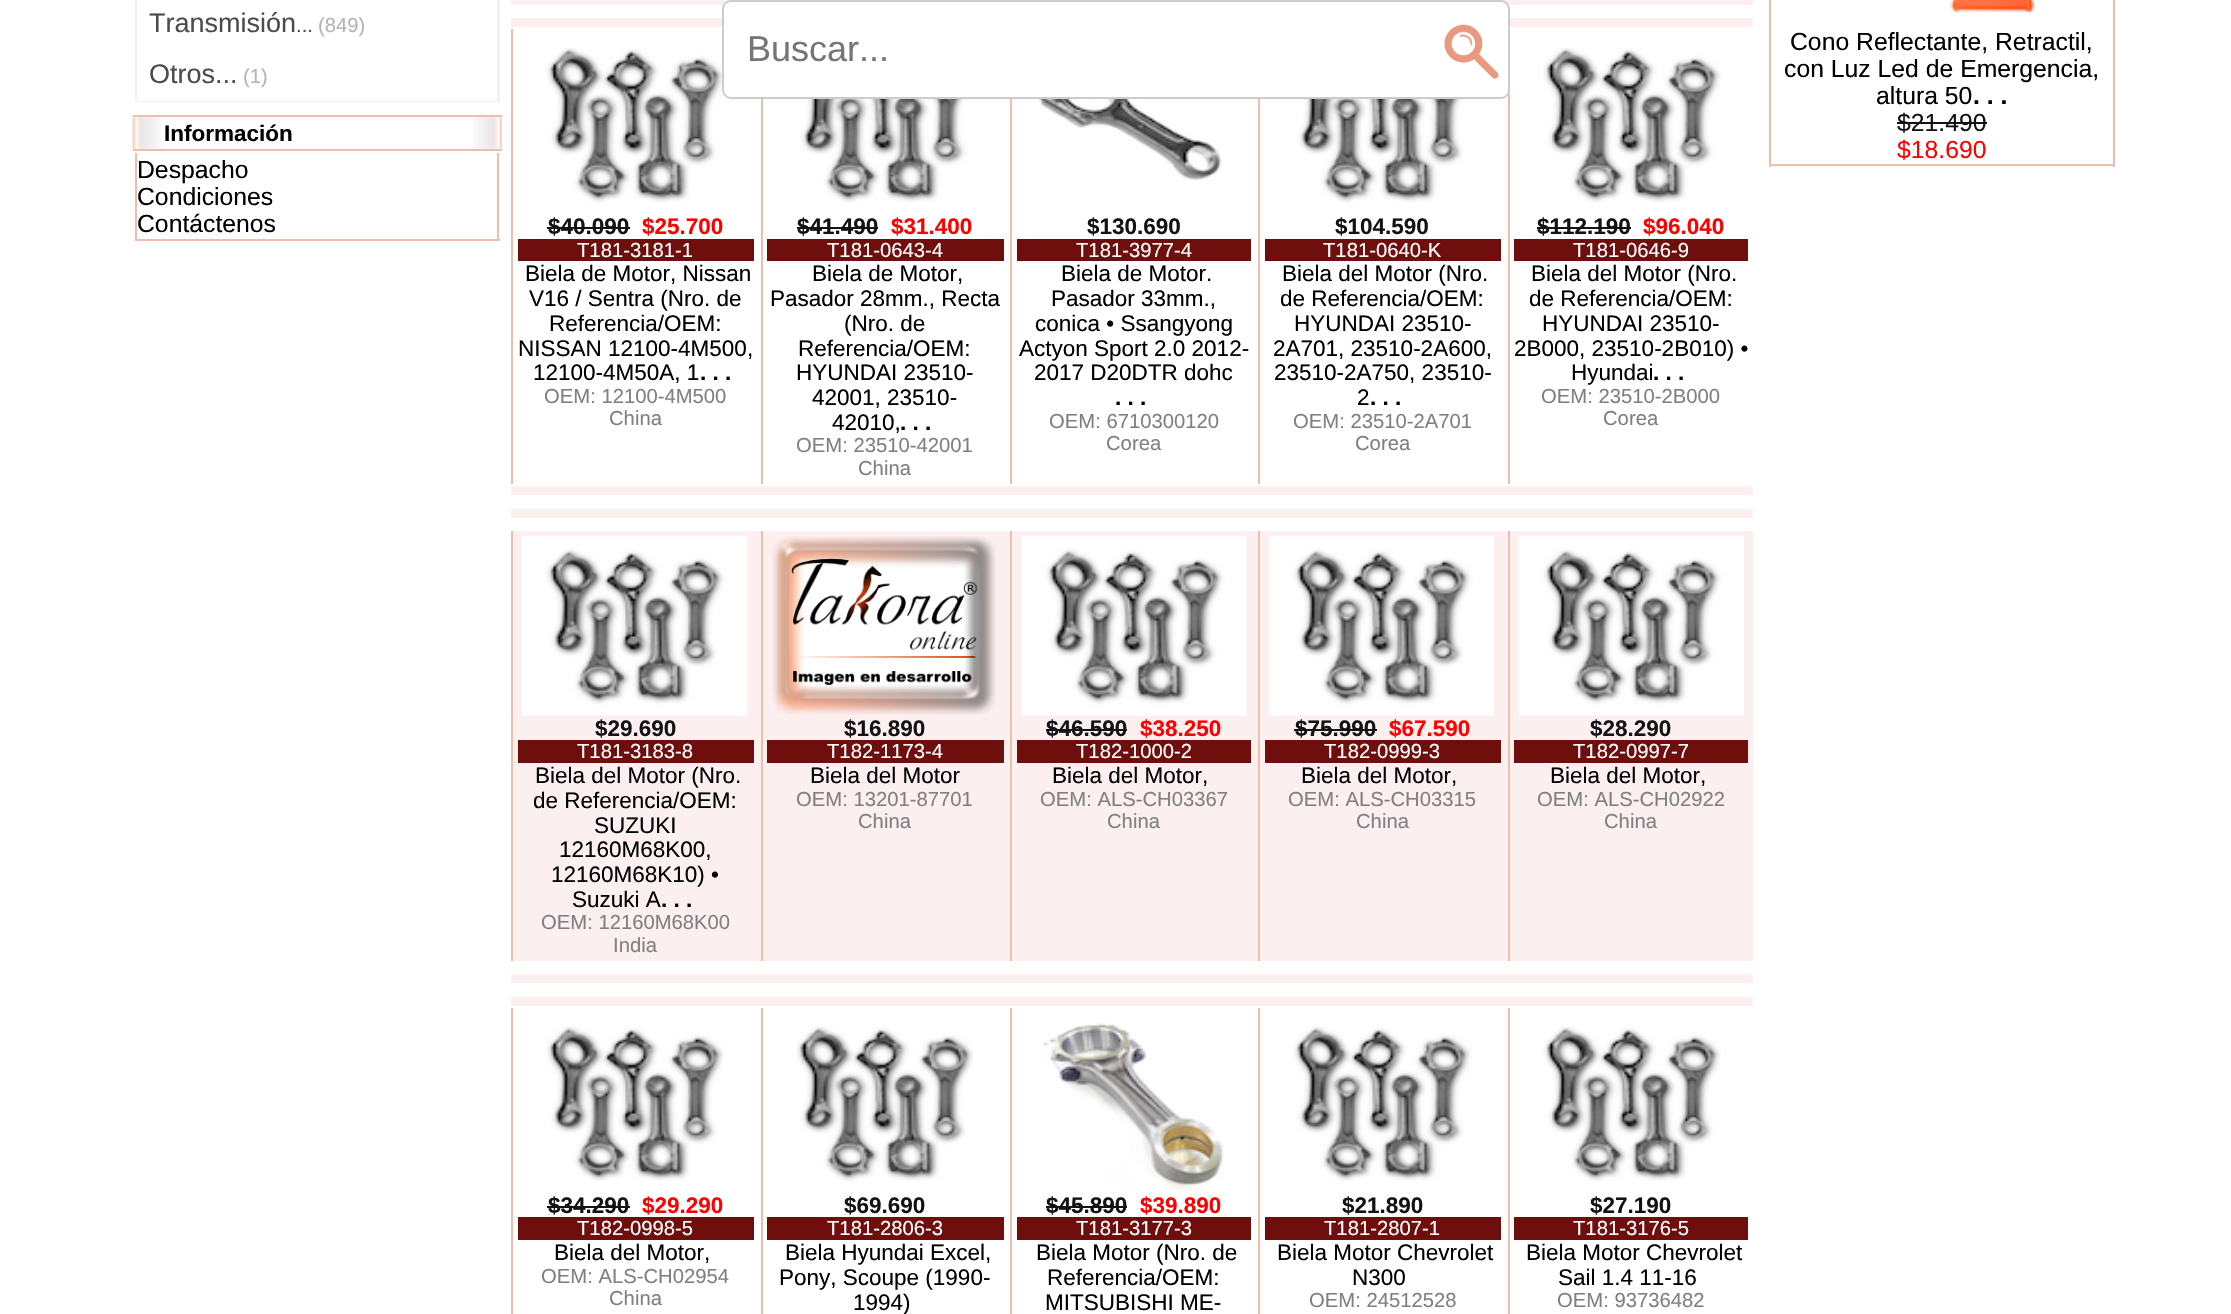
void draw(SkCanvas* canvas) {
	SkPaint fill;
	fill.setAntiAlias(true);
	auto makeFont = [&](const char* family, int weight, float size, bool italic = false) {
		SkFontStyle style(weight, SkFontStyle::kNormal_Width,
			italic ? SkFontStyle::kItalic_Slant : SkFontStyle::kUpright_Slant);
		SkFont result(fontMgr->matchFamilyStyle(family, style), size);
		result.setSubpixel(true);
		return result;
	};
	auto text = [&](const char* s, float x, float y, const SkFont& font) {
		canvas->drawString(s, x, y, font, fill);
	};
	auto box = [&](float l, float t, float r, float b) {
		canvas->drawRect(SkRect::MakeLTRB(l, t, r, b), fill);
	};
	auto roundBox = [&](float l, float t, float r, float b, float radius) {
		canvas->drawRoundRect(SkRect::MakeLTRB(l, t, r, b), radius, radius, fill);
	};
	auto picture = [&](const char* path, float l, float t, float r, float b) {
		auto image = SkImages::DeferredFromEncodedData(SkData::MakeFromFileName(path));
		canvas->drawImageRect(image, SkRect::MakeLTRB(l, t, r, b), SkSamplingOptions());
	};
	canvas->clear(0xFFFFFFFF);
	fill.setColor(0xFFF1F1F1);
	box(135, 0, 500, 102);
	fill.setColor(0xFFFFFFFF);
	box(137, 0, 497, 101);
	fill.setColor(0xFFEEBEAD);
	box(133, 115, 502, 117);
	box(133, 149, 502, 151);
	picture("image0.png", 132, 117, 162, 149);
	picture("image1.png", 473, 117, 502, 149);
	box(497, 153, 499, 241);
	box(135, 239, 500, 241);
	box(135, 153, 137, 241);
	box(2113, 0, 2115, 167);
	box(1769, 164, 2115, 166);
	box(1769, 0, 1771, 167);
	picture("image2.png", 1950, 0, 2035, 14);
	fill.setColor(0xFF131313);
	box(1897, 122, 1987, 124);
	fill.setColor(0xFFFCEFEF);
	box(511, 0, 1753, 5);
	box(511, 18, 1753, 27);
	fill.setColor(0xFFEEBEAD);
	box(511, 29, 513, 484);
	picture("image3.png", 546, 48, 724, 203);
	fill.setColor(0xFF131313);
	box(547, 227, 630, 229);
	fill.setColor(0xFF6E0F0D);
	box(518, 239, 754, 261);
	fill.setColor(0xFFEEBEAD);
	box(761, 99, 763, 484);
	picture("image4.png", 796, 99, 974, 203);
	fill.setColor(0xFF131313);
	box(797, 227, 878, 229);
	fill.setColor(0xFF6E0F0D);
	box(767, 239, 1004, 261);
	fill.setColor(0xFFEEBEAD);
	box(1010, 99, 1012, 484);
	picture("image5.png", 1036, 99, 1222, 181);
	fill.setColor(0xFF6E0F0D);
	box(1017, 239, 1251, 261);
	fill.setColor(0xFFEEBEAD);
	box(1258, 99, 1260, 484);
	picture("image6.png", 1293, 99, 1472, 203);
	fill.setColor(0xFF6E0F0D);
	box(1265, 239, 1501, 261);
	fill.setColor(0xFFEEBEAD);
	box(1508, 90, 1510, 484);
	picture("image7.png", 1543, 48, 1721, 203);
	fill.setColor(0xFF131313);
	box(1537, 227, 1631, 229);
	fill.setColor(0xFF6E0F0D);
	box(1514, 239, 1748, 261);
	fill.setColor(0xFFFCEFEF);
	box(511, 486, 1753, 495);
	box(511, 509, 1753, 518);
	box(513, 531, 1753, 961);
	fill.setColor(0xFFEEBEAD);
	box(511, 531, 513, 961);
	picture("image8.png", 522, 535, 747, 716);
	fill.setColor(0xFF6E0F0D);
	box(518, 740, 754, 763);
	fill.setColor(0xFFEEBEAD);
	box(761, 531, 763, 961);
	picture("image9.png", 772, 536, 996, 715);
	fill.setColor(0xFF6E0F0D);
	box(767, 740, 1004, 763);
	fill.setColor(0xFFEEBEAD);
	box(1010, 531, 1012, 961);
	picture("image10.png", 1021, 535, 1247, 716);
	fill.setColor(0xFF131313);
	box(1046, 729, 1127, 731);
	fill.setColor(0xFF6E0F0D);
	box(1017, 740, 1251, 763);
	fill.setColor(0xFFEEBEAD);
	box(1258, 531, 1260, 961);
	picture("image11.png", 1269, 535, 1494, 716);
	fill.setColor(0xFF131313);
	box(1294, 729, 1377, 731);
	fill.setColor(0xFF6E0F0D);
	box(1265, 740, 1501, 763);
	fill.setColor(0xFFEEBEAD);
	box(1508, 531, 1510, 961);
	picture("image12.png", 1518, 535, 1744, 716);
	fill.setColor(0xFF6E0F0D);
	box(1514, 740, 1748, 763);
	fill.setColor(0xFFFCEFEF);
	box(511, 974, 1753, 983);
	box(511, 997, 1753, 1006);
	fill.setColor(0xFFEEBEAD);
	box(511, 1008, 513, 1314);
	picture("image13.png", 546, 1026, 724, 1181);
	fill.setColor(0xFF131313);
	box(547, 1206, 630, 1208);
	fill.setColor(0xFF6E0F0D);
	box(518, 1217, 754, 1240);
	fill.setColor(0xFFEEBEAD);
	box(761, 1008, 763, 1314);
	picture("image14.png", 796, 1026, 974, 1181);
	fill.setColor(0xFF6E0F0D);
	box(767, 1217, 1004, 1240);
	fill.setColor(0xFFEEBEAD);
	box(1010, 1008, 1012, 1314);
	picture("image15.png", 1043, 1023, 1224, 1191);
	fill.setColor(0xFF131313);
	box(1046, 1206, 1127, 1208);
	fill.setColor(0xFF6E0F0D);
	box(1017, 1217, 1251, 1240);
	fill.setColor(0xFFEEBEAD);
	box(1258, 1008, 1260, 1314);
	picture("image16.png", 1293, 1026, 1472, 1181);
	fill.setColor(0xFF6E0F0D);
	box(1265, 1217, 1501, 1240);
	fill.setColor(0xFFEEBEAD);
	box(1508, 1008, 1510, 1314);
	picture("image17.png", 1543, 1026, 1721, 1181);
	fill.setColor(0xFF6E0F0D);
	box(1514, 1217, 1748, 1240);
	fill.setColor(0xFFFFFFFF);
	roundBox(722, 0, 1510, 99, 9);
	picture("image18.png", 1444, 24, 1499, 79);
	fill.setStyle(SkPaint::kStroke_Style);
	fill.setStrokeWidth(2);
	fill.setColor(0xFFCCCCCC);
	canvas->drawRoundRect(SkRect::MakeLTRB(723, 1, 1509, 98), 8, 8, fill);
	auto font1 = makeFont("Liberation Sans", 400, 27);
	fill.setStyle(SkPaint::kFill_Style);
	fill.setColor(0xFF4C4C4C);
	text("Transmisión", 149, 32, font1);
	auto font2 = makeFont("Liberation Sans", 400, 20.25f);
	text("...", 296, 32, font2);
	fill.setColor(0xFFB4B4B4);
	text("(849)", 318, 32, font2);
	fill.setColor(0xFF4C4C4C);
	text("Otros...", 149, 83, font1);
	fill.setColor(0xFFB4B4B4);
	text("(1)", 243, 83, font2);
	auto font3 = makeFont("Liberation Sans", 700, 22.5f);
	fill.setColor(0xFF000000);
	text("Información", 164, 141, font3);
	auto font4 = makeFont("Liberation Sans", 400, 24.75f);
	text("Despacho", 137, 178, font4);
	text("Condiciones", 137, 205, font4);
	text("Contáctenos", 137, 232, font4);
	text("Cono Reflectante, Retractil,", 1790, 50, font4);
	text("con Luz Led de Emergencia,", 1784, 77, font4);
	text("altura 50", 1876, 104, font4);
	auto font5 = makeFont("Liberation Sans", 700, 24.75f);
	text(". . .", 1973, 104, font5);
	fill.setColor(0xFF131313);
	text("$21.490", 1897, 131, font4);
	fill.setColor(0xFFFF0000);
	text("$18.690", 1897, 158, font4);
	fill.setColor(0xFF131313);
	text("$40.090", 548, 234, font3);
	fill.setColor(0xFFFF0000);
	text("$25.700", 642, 234, font3);
	fill.setColor(0xFFFFFFFF);
	text("T181-3181-1", 577, 257, font2);
	auto font6 = makeFont("Liberation Sans", 400, 22.5f);
	fill.setColor(0xFF000000);
	text("Biela de Motor, Nissan", 525, 281, font6);
	text("V16 / Sentra (Nro. de", 529, 306, font6);
	text("Referencia/OEM:", 549, 331, font6);
	text("NISSAN 12100-4M500,", 518, 356, font6);
	text("12100-4M50A, 1", 533, 380, font6);
	text(". . .", 700, 380, font3);
	fill.setColor(0xFF808080);
	text("OEM: 12100-4M500", 544, 403, font2);
	text("China", 609, 425, font2);
	fill.setColor(0xFF131313);
	text("$41.490", 797, 234, font3);
	fill.setColor(0xFFFF0000);
	text("$31.400", 891, 234, font3);
	fill.setColor(0xFFFFFFFF);
	text("T181-0643-4", 827, 257, font2);
	fill.setColor(0xFF000000);
	text("Biela de Motor,", 812, 281, font6);
	text("Pasador 28mm., Recta", 770, 306, font6);
	text("(Nro. de", 844, 331, font6);
	text("Referencia/OEM:", 798, 356, font6);
	text("HYUNDAI 23510-", 796, 380, font6);
	text("42001, 23510-", 812, 405, font6);
	text("42010,", 832, 430, font6);
	text(". . .", 900, 430, font3);
	fill.setColor(0xFF808080);
	text("OEM: 23510-42001", 796, 452, font2);
	text("China", 858, 475, font2);
	fill.setColor(0xFF131313);
	text("$130.690", 1087, 234, font3);
	fill.setColor(0xFFFFFFFF);
	text("T181-3977-4", 1076, 257, font2);
	fill.setColor(0xFF000000);
	text("Biela de Motor.", 1061, 281, font6);
	text("Pasador 33mm.,", 1051, 306, font6);
	text("conica • Ssangyong", 1035, 331, font6);
	text("Actyon Sport 2.0 2012-", 1019, 356, font6);
	text("2017 D20DTR dohc", 1034, 380, font6);
	text(". . .", 1115, 405, font3);
	fill.setColor(0xFF808080);
	text("OEM: 6710300120", 1049, 428, font2);
	text("Corea", 1106, 450, font2);
	fill.setColor(0xFF131313);
	text("$104.590", 1335, 234, font3);
	fill.setColor(0xFFFFFFFF);
	text("T181-0640-K", 1323, 257, font2);
	fill.setColor(0xFF000000);
	text("Biela del Motor (Nro.", 1282, 281, font6);
	text("de Referencia/OEM:", 1280, 306, font6);
	text("HYUNDAI 23510-", 1294, 331, font6);
	text("2A701, 23510-2A600,", 1273, 356, font6);
	text("23510-2A750, 23510-", 1274, 380, font6);
	text("2", 1357, 405, font6);
	text(". . .", 1370, 405, font3);
	fill.setColor(0xFF808080);
	text("OEM: 23510-2A701", 1293, 428, font2);
	text("Corea", 1355, 450, font2);
	fill.setColor(0xFF131313);
	text("$112.190", 1537, 234, font3);
	fill.setColor(0xFFFF0000);
	text("$96.040", 1643, 234, font3);
	fill.setColor(0xFFFFFFFF);
	text("T181-0646-9", 1573, 257, font2);
	fill.setColor(0xFF000000);
	text("Biela del Motor (Nro.", 1531, 281, font6);
	text("de Referencia/OEM:", 1529, 306, font6);
	text("HYUNDAI 23510-", 1542, 331, font6);
	text("2B000, 23510-2B010) •", 1514, 356, font6);
	text("Hyundai", 1571, 380, font6);
	text(". . .", 1653, 380, font3);
	fill.setColor(0xFF808080);
	text("OEM: 23510-2B000", 1541, 403, font2);
	text("Corea", 1603, 425, font2);
	fill.setColor(0xFF131313);
	text("$29.690", 595, 736, font3);
	fill.setColor(0xFFFFFFFF);
	text("T181-3183-8", 577, 758, font2);
	fill.setColor(0xFF000000);
	text("Biela del Motor (Nro.", 535, 783, font6);
	text("de Referencia/OEM:", 533, 808, font6);
	text("SUZUKI", 594, 833, font6);
	text("12160M68K00,", 559, 857, font6);
	text("12160M68K10) •", 551, 882, font6);
	text("Suzuki A", 572, 907, font6);
	text(". . .", 661, 907, font3);
	fill.setColor(0xFF808080);
	text("OEM: 12160M68K00", 541, 929, font2);
	text("India", 613, 952, font2);
	fill.setColor(0xFF131313);
	text("$16.890", 844, 736, font3);
	fill.setColor(0xFFFFFFFF);
	text("T182-1173-4", 827, 758, font2);
	fill.setColor(0xFF000000);
	text("Biela del Motor", 810, 783, font6);
	fill.setColor(0xFF808080);
	text("OEM: 13201-87701", 796, 806, font2);
	text("China", 858, 828, font2);
	fill.setColor(0xFF131313);
	text("$46.590", 1046, 736, font3);
	fill.setColor(0xFFFF0000);
	text("$38.250", 1140, 736, font3);
	fill.setColor(0xFFFFFFFF);
	text("T182-1000-2", 1076, 758, font2);
	fill.setColor(0xFF000000);
	text("Biela del Motor,", 1052, 783, font6);
	fill.setColor(0xFF808080);
	text("OEM: ALS-CH03367", 1040, 806, font2);
	text("China", 1107, 828, font2);
	fill.setColor(0xFF131313);
	text("$75.990", 1295, 736, font3);
	fill.setColor(0xFFFF0000);
	text("$67.590", 1389, 736, font3);
	fill.setColor(0xFFFFFFFF);
	text("T182-0999-3", 1324, 758, font2);
	fill.setColor(0xFF000000);
	text("Biela del Motor,", 1301, 783, font6);
	fill.setColor(0xFF808080);
	text("OEM: ALS-CH03315", 1288, 806, font2);
	text("China", 1356, 828, font2);
	fill.setColor(0xFF131313);
	text("$28.290", 1590, 736, font3);
	fill.setColor(0xFFFFFFFF);
	text("T182-0997-7", 1573, 758, font2);
	fill.setColor(0xFF000000);
	text("Biela del Motor,", 1550, 783, font6);
	fill.setColor(0xFF808080);
	text("OEM: ALS-CH02922", 1537, 806, font2);
	text("China", 1604, 828, font2);
	fill.setColor(0xFF131313);
	text("$34.290", 548, 1213, font3);
	fill.setColor(0xFFFF0000);
	text("$29.290", 642, 1213, font3);
	fill.setColor(0xFFFFFFFF);
	text("T182-0998-5", 577, 1235, font2);
	fill.setColor(0xFF000000);
	text("Biela del Motor,", 554, 1260, font6);
	fill.setColor(0xFF808080);
	text("OEM: ALS-CH02954", 541, 1283, font2);
	text("China", 609, 1305, font2);
	fill.setColor(0xFF131313);
	text("$69.690", 844, 1213, font3);
	fill.setColor(0xFFFFFFFF);
	text("T181-2806-3", 827, 1235, font2);
	fill.setColor(0xFF000000);
	text("Biela Hyundai Excel,", 785, 1260, font6);
	text("Pony, Scoupe (1990-", 779, 1285, font6);
	text("1994)", 853, 1310, font6);
	fill.setColor(0xFF131313);
	text("$45.890", 1046, 1213, font3);
	fill.setColor(0xFFFF0000);
	text("$39.890", 1140, 1213, font3);
	fill.setColor(0xFFFFFFFF);
	text("T181-3177-3", 1076, 1235, font2);
	fill.setColor(0xFF000000);
	text("Biela Motor (Nro. de", 1036, 1260, font6);
	text("Referencia/OEM:", 1047, 1285, font6);
	text("MITSUBISHI ME-", 1045, 1310, font6);
	fill.setColor(0xFF131313);
	text("$21.890", 1342, 1213, font3);
	fill.setColor(0xFFFFFFFF);
	text("T181-2807-1", 1324, 1235, font2);
	fill.setColor(0xFF000000);
	text("Biela Motor Chevrolet", 1277, 1260, font6);
	text("N300", 1352, 1285, font6);
	fill.setColor(0xFF808080);
	text("OEM: 24512528", 1309, 1307, font2);
	fill.setColor(0xFF131313);
	text("$27.190", 1590, 1213, font3);
	fill.setColor(0xFFFFFFFF);
	text("T181-3176-5", 1573, 1235, font2);
	fill.setColor(0xFF000000);
	text("Biela Motor Chevrolet", 1526, 1260, font6);
	text("Sail 1.4 11-16", 1558, 1285, font6);
	fill.setColor(0xFF808080);
	text("OEM: 93736482", 1557, 1307, font2);
	auto font7 = makeFont("Liberation Sans", 400, 36);
	fill.setColor(0xFF757575);
	text("Buscar...", 747, 61, font7);
}
